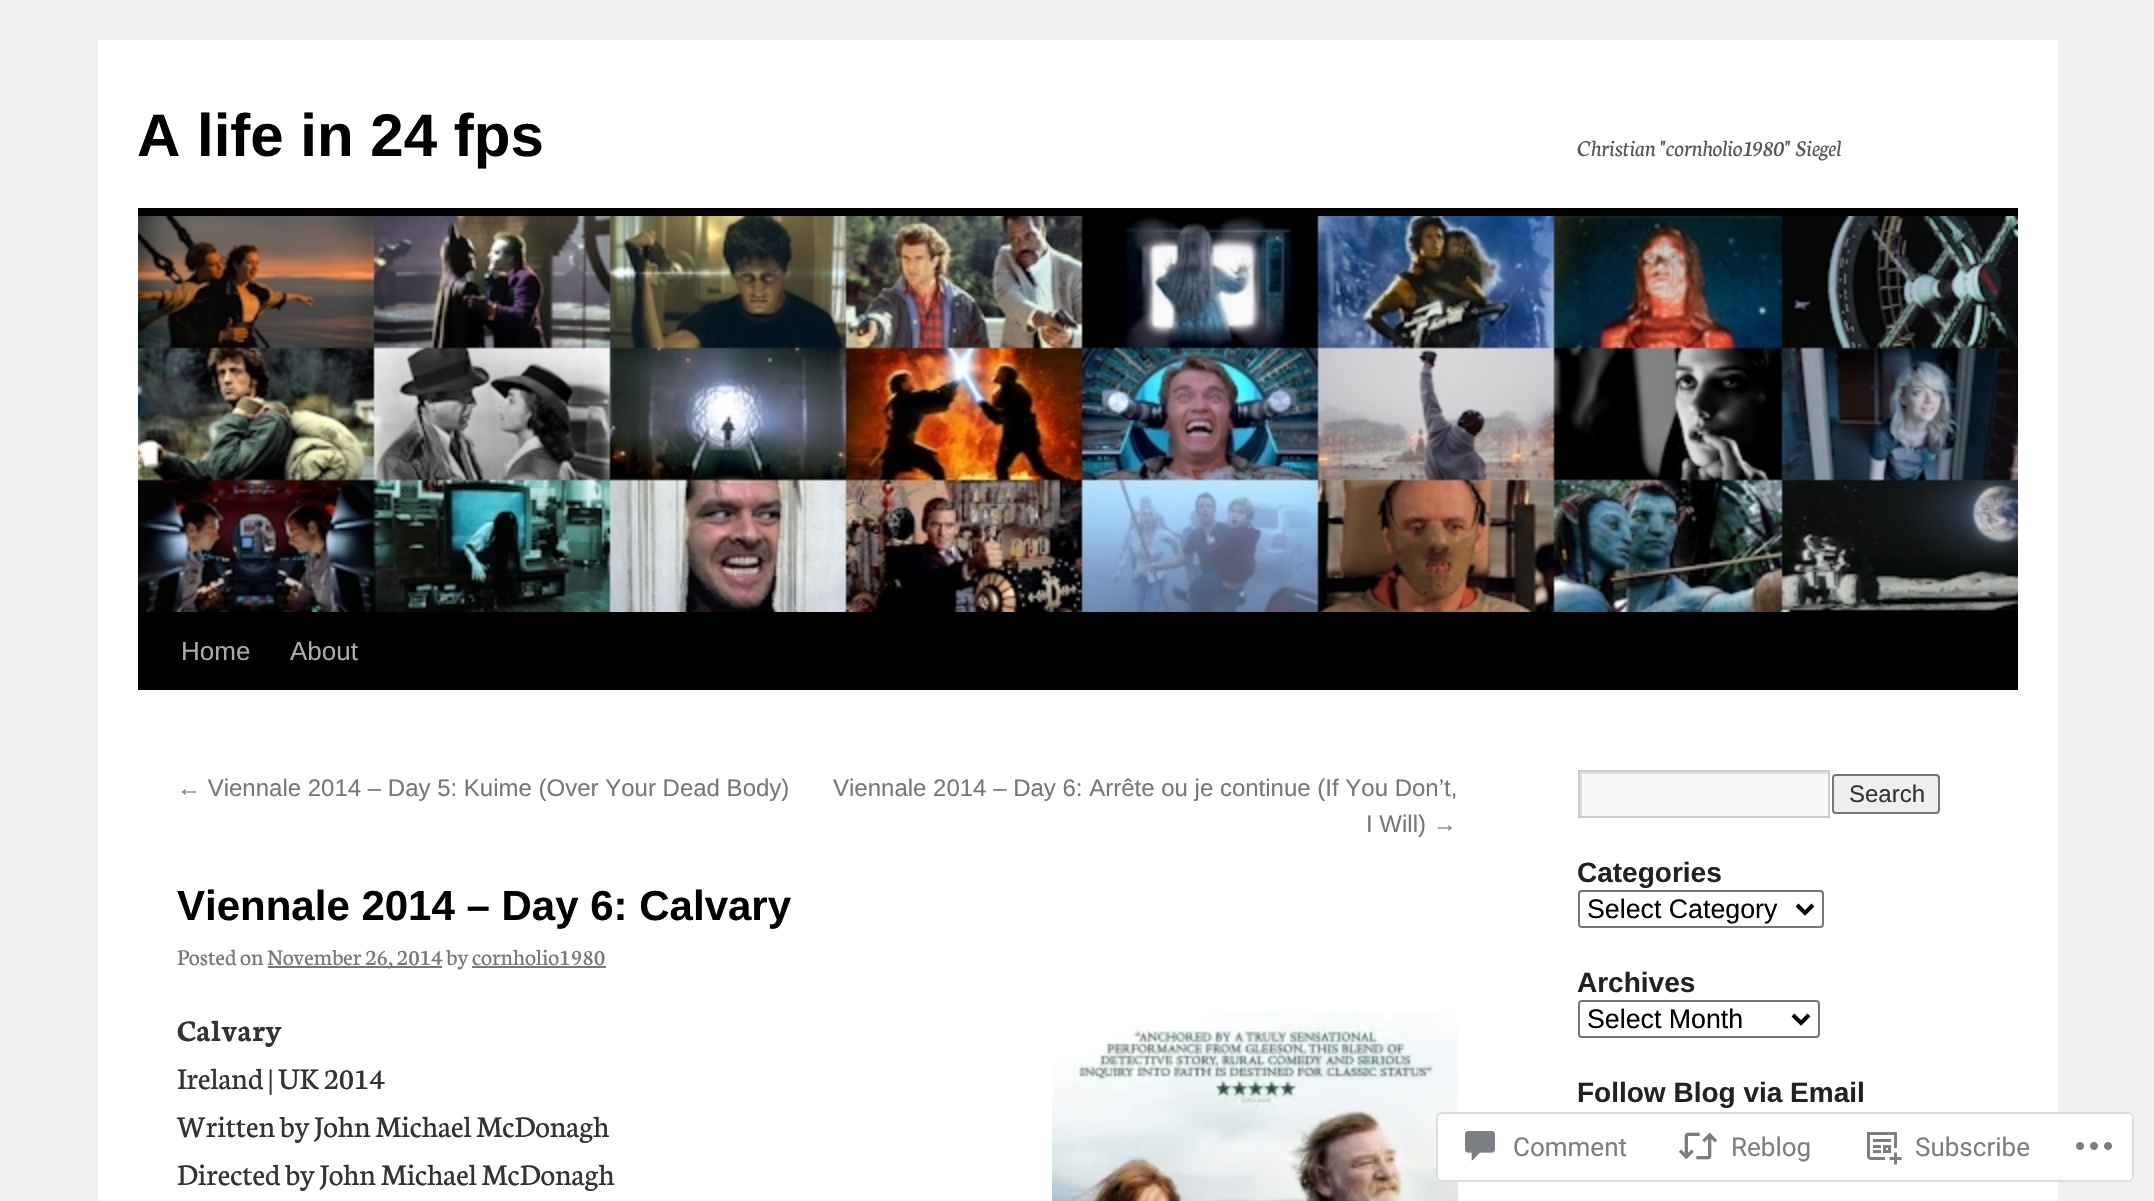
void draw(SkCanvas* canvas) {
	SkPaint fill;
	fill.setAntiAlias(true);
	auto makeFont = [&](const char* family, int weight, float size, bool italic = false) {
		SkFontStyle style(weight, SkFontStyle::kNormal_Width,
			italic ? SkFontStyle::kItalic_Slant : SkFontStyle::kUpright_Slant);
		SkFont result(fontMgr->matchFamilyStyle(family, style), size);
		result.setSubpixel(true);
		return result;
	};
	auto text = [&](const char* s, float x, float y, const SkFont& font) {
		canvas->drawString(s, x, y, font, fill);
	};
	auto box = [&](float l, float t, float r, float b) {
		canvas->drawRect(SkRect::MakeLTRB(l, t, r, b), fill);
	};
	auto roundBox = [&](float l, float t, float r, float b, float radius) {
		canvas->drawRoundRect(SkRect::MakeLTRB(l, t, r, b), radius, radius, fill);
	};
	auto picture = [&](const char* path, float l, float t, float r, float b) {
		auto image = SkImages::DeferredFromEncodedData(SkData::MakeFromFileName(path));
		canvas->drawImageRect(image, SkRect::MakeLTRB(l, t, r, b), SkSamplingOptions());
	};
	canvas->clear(0xFFF1F1F1);
	fill.setColor(0xFFFFFFFF);
	box(98, 40, 2058, 1201);
	fill.setColor(0xFF000000);
	box(138, 208, 2018, 216);
	box(138, 612, 2018, 690);
	picture("image0.png", 138, 216, 2018, 612);
	fill.setColor(0xFF777777);
	box(268, 966, 442, 968);
	box(472, 966, 606, 968);
	picture("image1.png", 1052, 1012, 1458, 1201);
	fill.setColor(0xFFF9F9F9);
	box(1582, 774, 1828, 816);
	canvas->save();
	canvas->clipRect(SkRect::MakeLTRB(1580, 772, 1828, 816));
	fill.setColor(0xFFE0E0E0);
	canvas->drawPath(SkPathBuilder(SkPathFillType::kEvenOdd).moveTo(1382, 574).lineTo(2026, 574).lineTo(2026, 1014).lineTo(1382, 1014).close().moveTo(1582, 774).lineTo(1830, 774).lineTo(1830, 818).lineTo(1582, 818).close().detach(), fill);
	canvas->restore();
	fill.setStyle(SkPaint::kStroke_Style);
	fill.setStrokeWidth(2);
	fill.setColor(0xFFCCCCCC);
	canvas->drawRect(SkRect::MakeLTRB(1579, 771, 1829, 817), fill);
	fill.setStyle(SkPaint::kFill_Style);
	fill.setColor(0xFFEFEFEF);
	canvas->drawRoundRect(SkRect::MakeLTRB(1833, 775, 1939, 813), 3, 3, fill);
	fill.setStyle(SkPaint::kStroke_Style);
	fill.setColor(0xFF767676);
	canvas->drawRoundRect(SkRect::MakeLTRB(1833, 775, 1939, 813), 3, 3, fill);
	canvas->drawRoundRect(SkRect::MakeLTRB(1579, 891, 1823, 927), 3, 3, fill);
	fill.setStrokeWidth(4);
	fill.setColor(0xFF000000);
	canvas->drawPath(SkPathBuilder().moveTo(1797, 905).lineTo(1805, 913).lineTo(1813, 905).detach(), fill);
	fill.setStrokeWidth(2);
	fill.setColor(0xFF767676);
	canvas->drawRoundRect(SkRect::MakeLTRB(1579, 1001, 1819, 1037), 3, 3, fill);
	fill.setStrokeWidth(4);
	fill.setColor(0xFF000000);
	canvas->drawPath(SkPathBuilder().moveTo(1793, 1015).lineTo(1801, 1023).lineTo(1809, 1015).detach(), fill);
	fill.setStyle(SkPaint::kFill_Style);
	fill.setColor(0xFAFFFFFF);
	roundBox(1436, 1112, 2134, 1182, 6);
	fill.setStyle(SkPaint::kStroke_Style);
	fill.setStrokeWidth(2);
	fill.setColor(0xFADCDCDE);
	canvas->drawRoundRect(SkRect::MakeLTRB(1437, 1113, 2133, 1181), 5, 5, fill);
	picture("image2.png", 1465, 1131, 1495, 1161);
	picture("image3.png", 1678, 1132, 1718, 1160);
	picture("image4.png", 1867, 1132, 1902, 1165);
	picture("image5.png", 2076, 1142, 2112, 1150);
	auto font1 = makeFont("Liberation Sans", 700, 60);
	fill.setStyle(SkPaint::kFill_Style);
	fill.setColor(0xFF000000);
	text("A life in 24 fps", 137, 156, font1);
	auto font2 = makeFont("Neuton", 400, 24, true);
	fill.setColor(0xFF595959);
	text("Christian \"cornholio1980\" Siegel", 1577, 156, font2);
	auto font3 = makeFont("Liberation Sans", 400, 26);
	fill.setColor(0xFFAAAAAA);
	text("Home", 181, 660, font3);
	text("About", 290, 660, font3);
	auto font4 = makeFont("Liberation Sans", 400, 24);
	fill.setColor(0xFF777777);
	text("← Viennale 2014 – Day 5: Kuime (Over Your Dead Body)", 177, 796, font4);
	text("Viennale 2014 – Day 6: Arrête ou je continue (If You Don’t,", 833, 796, font4);
	text("I Will) →", 1366, 832, font4);
	auto font5 = makeFont("Liberation Sans", 700, 42);
	fill.setColor(0xFF000000);
	text("Viennale 2014 – Day 6: Calvary", 177, 920, font5);
	auto font6 = makeFont("Neuton", 400, 24);
	fill.setColor(0xFF777777);
	text("Posted on", 177, 965, font6);
	text("November 26, 2014 by cornholio1980", 267, 965, font6);
	auto font7 = makeFont("Neuton", 700, 32);
	fill.setColor(0xFF333333);
	text("Calvary", 177, 1041, font7);
	auto font8 = makeFont("Neuton", 400, 32);
	text("Ireland | UK 2014", 177, 1089, font8);
	text("Written by John Michael McDonagh", 177, 1137, font8);
	text("Directed by John Michael McDonagh", 177, 1185, font8);
	text("Search", 1849, 802, font4);
	auto font9 = makeFont("Liberation Sans", 700, 28);
	fill.setColor(0xFF222222);
	text("Categories", 1577, 882, font9);
	auto font10 = makeFont("Liberation Sans", 400, 26.75f);
	fill.setColor(0xFF000000);
	text("Select Category", 1587, 918, font10);
	fill.setColor(0xFF222222);
	text("Archives", 1577, 992, font9);
	fill.setColor(0xFF000000);
	text("Select Month", 1587, 1028, font10);
	fill.setColor(0xFF222222);
	text("Follow Blog via Email", 1577, 1102, font9);
	auto font11 = makeFont("Roboto", 400, 26);
	fill.setColor(0xFF7B7F85);
	text("Comment", 1513, 1156, font11);
	text("Reblog", 1731, 1156, font11);
	text("Subscribe", 1915, 1156, font11);
}
